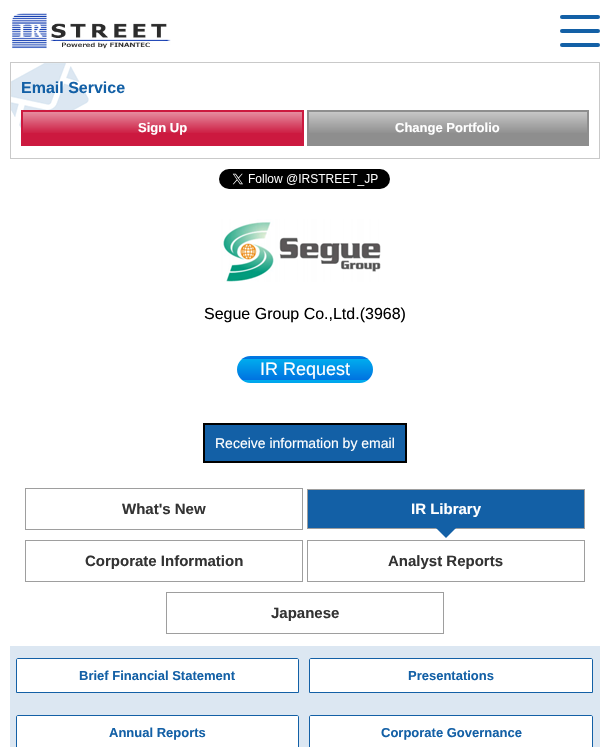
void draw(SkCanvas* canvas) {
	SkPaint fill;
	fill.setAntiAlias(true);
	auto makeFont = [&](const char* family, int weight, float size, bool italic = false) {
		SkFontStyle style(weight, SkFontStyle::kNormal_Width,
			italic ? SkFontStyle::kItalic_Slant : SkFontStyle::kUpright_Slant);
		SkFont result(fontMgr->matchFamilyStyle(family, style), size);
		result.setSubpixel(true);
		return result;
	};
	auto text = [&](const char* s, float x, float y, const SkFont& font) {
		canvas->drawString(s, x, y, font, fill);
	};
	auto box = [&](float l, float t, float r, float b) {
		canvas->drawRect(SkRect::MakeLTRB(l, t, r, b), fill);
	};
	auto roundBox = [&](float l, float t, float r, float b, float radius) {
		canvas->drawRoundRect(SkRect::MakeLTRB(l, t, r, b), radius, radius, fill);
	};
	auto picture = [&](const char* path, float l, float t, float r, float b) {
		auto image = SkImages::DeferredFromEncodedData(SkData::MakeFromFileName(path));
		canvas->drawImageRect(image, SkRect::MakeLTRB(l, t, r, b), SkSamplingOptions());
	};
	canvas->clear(0xFFFFFFFF);
	picture("image0.png", 11, 13, 171, 49);
	fill.setColor(0xFF1360A6);
	roundBox(560, 15, 600, 19, 2);
	roundBox(560, 29, 600, 33, 2);
	roundBox(560, 43, 600, 47, 2);
	picture("image1.png", 11, 63, 89, 128);
	fill.setStyle(SkPaint::kStroke_Style);
	fill.setStrokeWidth(1);
	fill.setColor(0xFFC9C9C9);
	canvas->drawRect(SkRect::MakeLTRB(10.5f, 62.5f, 599.5f, 158.5f), fill);
	fill.setStyle(SkPaint::kFill_Style);
	fill.setColor(0xFFCC193F);
	box(21, 110, 304, 146);
	fill.setColor(0xFF8E8E8E);
	box(307, 110, 589, 146);
	picture("image2.png", 219, 169, 390, 189);
	picture("image3.png", 220, 219, 381, 282);
	canvas->save();
	canvas->clipPath(SkPathBuilder().moveTo(250.5f, 356).lineTo(359.5f, 356).cubicTo(367, 356, 373, 362, 373, 369.5f).cubicTo(373, 377, 367, 383, 359.5f, 383).lineTo(250.5f, 383).cubicTo(243, 383, 237, 377, 237, 369.5f).cubicTo(237, 362, 243, 356, 250.5f, 356).close().detach(), true);
	{
		const SkColor colors[] = {0xFF00ACEE, 0xFF0072E0};
		const float stops[] = {0, 1};
		const SkPoint ends[] = {{305, 338}, {305, 359}};
		fill.setShader(SkGradientShader::MakeLinear(ends, colors, stops, 2, SkTileMode::kClamp));
		fill.setAlpha(255);
	}
	box(237, 356, 373, 359);
	{
		const SkColor colors[] = {0xFF00ACEE, 0xFF0072E0};
		const float stops[] = {0, 1};
		const SkPoint ends[] = {{305, 359}, {305, 380}};
		fill.setShader(SkGradientShader::MakeLinear(ends, colors, stops, 2, SkTileMode::kClamp));
		fill.setAlpha(255);
	}
	box(237, 359, 373, 380);
	{
		const SkColor colors[] = {0xFF00ACEE, 0xFF0072E0};
		const float stops[] = {0, 1};
		const SkPoint ends[] = {{305, 380}, {305, 401}};
		fill.setShader(SkGradientShader::MakeLinear(ends, colors, stops, 2, SkTileMode::kClamp));
		fill.setAlpha(255);
	}
	box(237, 380, 373, 383);
	canvas->restore();
	fill.setShader(nullptr);
	fill.setColor(0xFF1360A6);
	canvas->drawRect(SkRect::MakeLTRB(204, 424, 406, 462), fill);
	fill.setStyle(SkPaint::kStroke_Style);
	fill.setStrokeWidth(2);
	fill.setColor(0xFF000000);
	canvas->drawRect(SkRect::MakeLTRB(204, 424, 406, 462), fill);
	fill.setStrokeWidth(1);
	fill.setColor(0xFF9E9E9E);
	canvas->drawRect(SkRect::MakeLTRB(25.5f, 488.5f, 302.5f, 529.5f), fill);
	fill.setStyle(SkPaint::kFill_Style);
	fill.setColor(0xFF1360A6);
	canvas->drawRect(SkRect::MakeLTRB(307.5f, 489.5f, 584.5f, 528.5f), fill);
	fill.setStyle(SkPaint::kStroke_Style);
	fill.setColor(0xFF9E9E9E);
	canvas->drawRect(SkRect::MakeLTRB(307.5f, 489.5f, 584.5f, 528.5f), fill);
	fill.setStyle(SkPaint::kFill_Style);
	fill.setColor(0xFF1360A6);
	canvas->drawPath(SkPathBuilder().moveTo(432, 524).lineTo(460, 524).lineTo(446, 538).close().detach(), fill);
	fill.setStyle(SkPaint::kStroke_Style);
	fill.setColor(0xFF9E9E9E);
	canvas->drawRect(SkRect::MakeLTRB(25.5f, 540.5f, 302.5f, 581.5f), fill);
	canvas->drawRect(SkRect::MakeLTRB(307.5f, 540.5f, 584.5f, 581.5f), fill);
	canvas->drawRect(SkRect::MakeLTRB(166.5f, 592.5f, 443.5f, 633.5f), fill);
	fill.setStyle(SkPaint::kFill_Style);
	fill.setColor(0xFFDCE7F2);
	box(10, 646, 600, 747);
	fill.setColor(0xFFFFFFFF);
	canvas->drawPath(SkPathBuilder().moveTo(18, 658.5f).lineTo(297, 658.5f).cubicTo(298, 658.5f, 298.5f, 659, 298.5f, 660).lineTo(298.5f, 692.5f).lineTo(16.5f, 692.5f).lineTo(16.5f, 660).cubicTo(16.5f, 659, 17, 658.5f, 18, 658.5f).close().detach(), fill);
	fill.setStyle(SkPaint::kStroke_Style);
	fill.setColor(0xFF1360A6);
	canvas->drawPath(SkPathBuilder().moveTo(18, 658.5f).lineTo(297, 658.5f).cubicTo(298, 658.5f, 298.5f, 659, 298.5f, 660).lineTo(298.5f, 692.5f).lineTo(16.5f, 692.5f).lineTo(16.5f, 660).cubicTo(16.5f, 659, 17, 658.5f, 18, 658.5f).close().detach(), fill);
	fill.setStyle(SkPaint::kFill_Style);
	fill.setColor(0xFFFFFFFF);
	canvas->drawPath(SkPathBuilder().moveTo(311, 658.5f).lineTo(591, 658.5f).cubicTo(592, 658.5f, 592.5f, 659, 592.5f, 660).lineTo(592.5f, 692.5f).lineTo(309.5f, 692.5f).lineTo(309.5f, 660).cubicTo(309.5f, 659, 310, 658.5f, 311, 658.5f).close().detach(), fill);
	fill.setStyle(SkPaint::kStroke_Style);
	fill.setColor(0xFF1360A6);
	canvas->drawPath(SkPathBuilder().moveTo(311, 658.5f).lineTo(591, 658.5f).cubicTo(592, 658.5f, 592.5f, 659, 592.5f, 660).lineTo(592.5f, 692.5f).lineTo(309.5f, 692.5f).lineTo(309.5f, 660).cubicTo(309.5f, 659, 310, 658.5f, 311, 658.5f).close().detach(), fill);
	fill.setStyle(SkPaint::kFill_Style);
	fill.setColor(0xFFFFFFFF);
	canvas->drawPath(SkPathBuilder().moveTo(18, 715.5f).lineTo(297, 715.5f).cubicTo(298, 715.5f, 298.5f, 716, 298.5f, 717).lineTo(298.5f, 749.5f).lineTo(16.5f, 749.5f).lineTo(16.5f, 717).cubicTo(16.5f, 716, 17, 715.5f, 18, 715.5f).close().detach(), fill);
	fill.setStyle(SkPaint::kStroke_Style);
	fill.setColor(0xFF1360A6);
	canvas->drawPath(SkPathBuilder().moveTo(18, 715.5f).lineTo(297, 715.5f).cubicTo(298, 715.5f, 298.5f, 716, 298.5f, 717).lineTo(298.5f, 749.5f).lineTo(16.5f, 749.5f).lineTo(16.5f, 717).cubicTo(16.5f, 716, 17, 715.5f, 18, 715.5f).close().detach(), fill);
	fill.setStyle(SkPaint::kFill_Style);
	fill.setColor(0xFFFFFFFF);
	canvas->drawPath(SkPathBuilder().moveTo(311, 715.5f).lineTo(591, 715.5f).cubicTo(592, 715.5f, 592.5f, 716, 592.5f, 717).lineTo(592.5f, 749.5f).lineTo(309.5f, 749.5f).lineTo(309.5f, 717).cubicTo(309.5f, 716, 310, 715.5f, 311, 715.5f).close().detach(), fill);
	fill.setStyle(SkPaint::kStroke_Style);
	fill.setColor(0xFF1360A6);
	canvas->drawPath(SkPathBuilder().moveTo(311, 715.5f).lineTo(591, 715.5f).cubicTo(592, 715.5f, 592.5f, 716, 592.5f, 717).lineTo(592.5f, 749.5f).lineTo(309.5f, 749.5f).lineTo(309.5f, 717).cubicTo(309.5f, 716, 310, 715.5f, 311, 715.5f).close().detach(), fill);
	auto font1 = makeFont("Liberation Sans", 700, 16);
	fill.setStyle(SkPaint::kFill_Style);
	text("Email Service", 21, 93, font1);
	auto font2 = makeFont("Liberation Sans", 700, 13);
	fill.setColor(0xFFFFFFFF);
	text("Sign Up", 138, 132, font2);
	{
		const SkColor colors[] = {0x80FFFFFF, 0x00FFFFFF};
		const float stops[] = {0, 1};
		const SkPoint ends[] = {{163, 112}, {163, 134}};
		fill.setShader(SkGradientShader::MakeLinear(ends, colors, stops, 2, SkTileMode::kClamp));
		fill.setAlpha(255);
	}
	box(23, 112, 302, 133);
	fill.setShader(nullptr);
	fill.setColor(0xFFFFFFFF);
	text("Change Portfolio", 395, 132, font2);
	{
		const SkColor colors[] = {0x80FFFFFF, 0x00FFFFFF};
		const float stops[] = {0, 1};
		const SkPoint ends[] = {{448, 112}, {448, 134}};
		fill.setShader(SkGradientShader::MakeLinear(ends, colors, stops, 2, SkTileMode::kClamp));
		fill.setAlpha(255);
	}
	box(309, 112, 587, 133);
	auto font3 = makeFont("Liberation Sans", 400, 16);
	fill.setShader(nullptr);
	fill.setColor(0xFF000000);
	text("Segue Group Co.,Ltd.(3968)", 204, 319, font3);
	auto font4 = makeFont("Liberation Sans", 400, 18);
	fill.setColor(0xFFFFFFFF);
	text("IR Request", 260, 375, font4);
	auto font5 = makeFont("Liberation Sans", 400, 14);
	text("Receive information by email", 215, 448, font5);
	auto font6 = makeFont("Liberation Sans", 700, 15);
	fill.setColor(0xFF333333);
	text("What's New", 122, 514, font6);
	fill.setColor(0xFFFFFFFF);
	text("IR Library", 411, 514, font6);
	fill.setColor(0xFF333333);
	text("Corporate Information", 85, 566, font6);
	text("Analyst Reports", 388, 566, font6);
	text("Japanese", 271, 618, font6);
	fill.setColor(0xFF1360A6);
	text("Brief Financial Statement", 79, 680, font2);
	text("Presentations", 408, 680, font2);
	text("Annual Reports", 109, 737, font2);
	text("Corporate Governance", 381, 737, font2);
}
